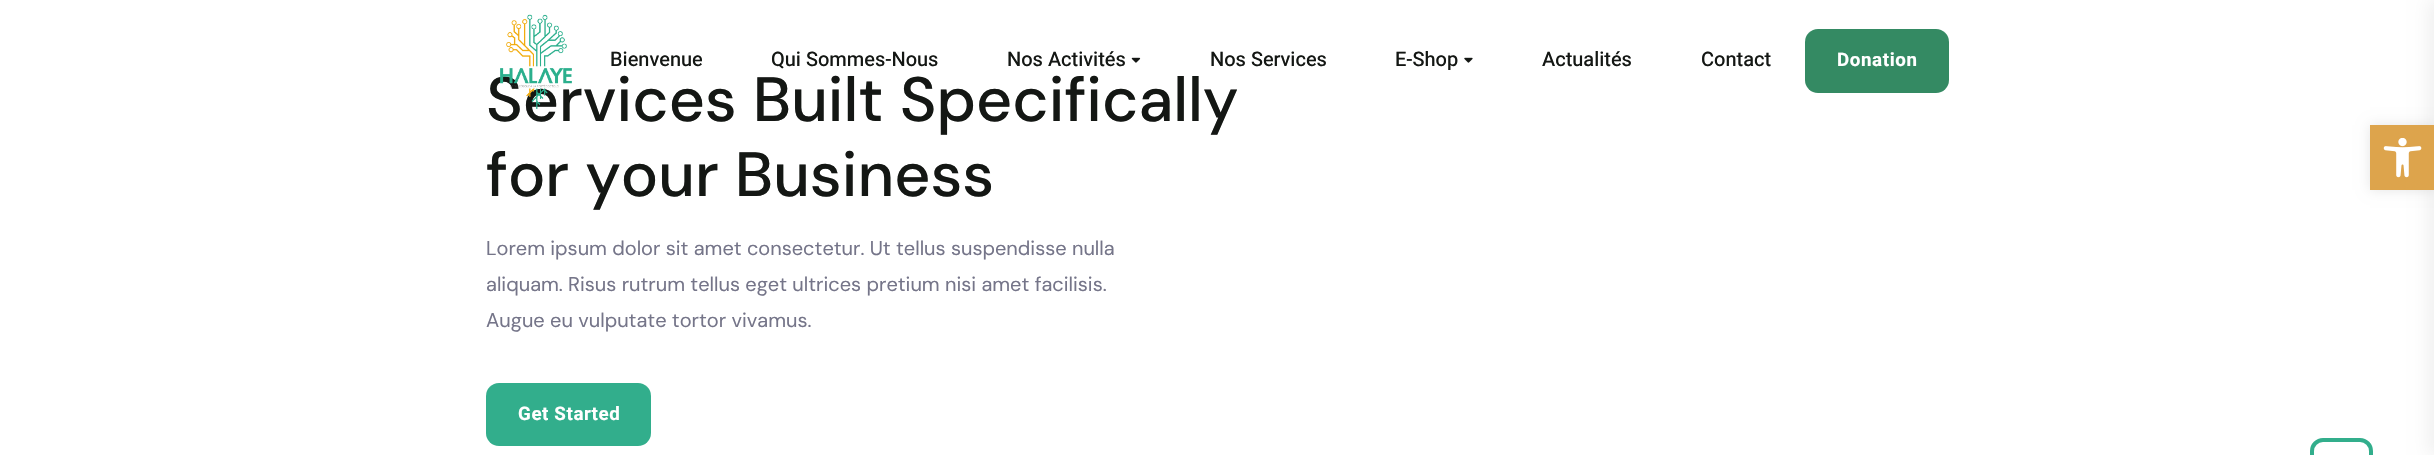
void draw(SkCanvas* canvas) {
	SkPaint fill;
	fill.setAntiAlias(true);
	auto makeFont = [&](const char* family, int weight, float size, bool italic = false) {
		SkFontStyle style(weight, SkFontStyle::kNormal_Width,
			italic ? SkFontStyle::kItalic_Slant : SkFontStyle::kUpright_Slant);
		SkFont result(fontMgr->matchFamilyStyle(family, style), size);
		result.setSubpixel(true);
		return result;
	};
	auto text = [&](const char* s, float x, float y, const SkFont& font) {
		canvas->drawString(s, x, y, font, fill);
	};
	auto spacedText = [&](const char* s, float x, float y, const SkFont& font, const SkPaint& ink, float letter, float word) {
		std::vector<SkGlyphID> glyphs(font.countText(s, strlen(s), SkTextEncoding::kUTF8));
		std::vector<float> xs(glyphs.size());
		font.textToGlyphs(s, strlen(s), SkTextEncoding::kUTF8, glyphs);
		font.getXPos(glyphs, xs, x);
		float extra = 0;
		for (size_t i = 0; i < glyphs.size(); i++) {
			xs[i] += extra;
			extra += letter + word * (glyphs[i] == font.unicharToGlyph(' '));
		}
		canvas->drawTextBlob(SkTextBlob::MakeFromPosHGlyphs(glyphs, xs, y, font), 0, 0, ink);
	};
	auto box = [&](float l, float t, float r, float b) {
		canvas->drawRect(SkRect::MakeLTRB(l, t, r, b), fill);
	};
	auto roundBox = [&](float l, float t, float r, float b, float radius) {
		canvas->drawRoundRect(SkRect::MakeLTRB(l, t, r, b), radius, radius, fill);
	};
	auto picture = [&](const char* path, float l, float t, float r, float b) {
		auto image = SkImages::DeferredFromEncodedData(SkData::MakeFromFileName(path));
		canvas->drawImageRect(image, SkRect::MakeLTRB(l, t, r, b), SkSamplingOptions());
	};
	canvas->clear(0xFFFFFFFF);
	picture("image1.png", 1131, 57, 1141, 63);
	picture("image2.png", 1464, 57, 1473, 63);
	fill.setColor(0xFF348A63);
	roundBox(1805, 29, 1949, 93, 13);
	fill.setColor(0x0F000000);
	fill.setMaskFilter(SkMaskFilter::MakeBlur(kNormal_SkBlurStyle, 9));
	canvas->drawRect(SkRect::MakeLTRB(2428, 0, 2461, 455), fill);
	fill.setMaskFilter(nullptr);
	fill.setColor(0xFF32AE8C);
	roundBox(486, 383, 651, 446, 13);
	fill.setColor(0x1A000000);
	fill.setMaskFilter(SkMaskFilter::MakeBlur(kNormal_SkBlurStyle, 6));
	canvas->drawRect(SkRect::MakeLTRB(2370, 125, 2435, 190), fill);
	fill.setMaskFilter(nullptr);
	fill.setColor(0xFFDDA44C);
	box(2370, 125, 2434, 190);
	picture("image3.png", 2383, 138, 2422, 178);
	fill.setStyle(SkPaint::kStroke_Style);
	fill.setStrokeWidth(4);
	fill.setColor(0xFF32AE8C);
	canvas->drawRoundRect(SkRect::MakeLTRB(2312, 440, 2371, 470), 11, 11, fill);
	auto font1 = makeFont("Heebo", 500, 20);
	fill.setStyle(SkPaint::kFill_Style);
	fill.setColor(0xFF141714);
	text("Bienvenue", 610, 66, font1);
	text("Qui Sommes-Nous", 771, 66, font1);
	text("Nos Activités", 1007, 66, font1);
	text("Nos Services", 1210, 66, font1);
	text("E-Shop", 1395, 66, font1);
	text("Actualités", 1542, 66, font1);
	text("Contact", 1701, 66, font1);
	auto font2 = makeFont("Heebo", 700, 18.75f);
	fill.setColor(0xFFFFFFFF);
	spacedText("Donation", 1837, 66, font2, fill, 0.6f, 0);
	auto font3 = makeFont("DM Sans", 500, 62.5f);
	fill.setColor(0xFF141714);
	text("Services Built Specifically", 486, 121, font3);
	picture("image0.png", 500, 14, 572, 109);
	text("for your Business", 486, 196, font3);
	auto font4 = makeFont("DM Sans", 400, 20);
	fill.setColor(0xFF757589);
	text("Lorem ipsum dolor sit amet consectetur. Ut tellus suspendisse nulla", 486, 255, font4);
	text("aliquam. Risus rutrum tellus eget ultrices pretium nisi amet facilisis.", 486, 291, font4);
	text("Augue eu vulputate tortor vivamus.", 486, 327, font4);
	fill.setColor(0xFFFFFFFF);
	spacedText("Get Started", 518, 420, font2, fill, 0.6f, 0);
}
